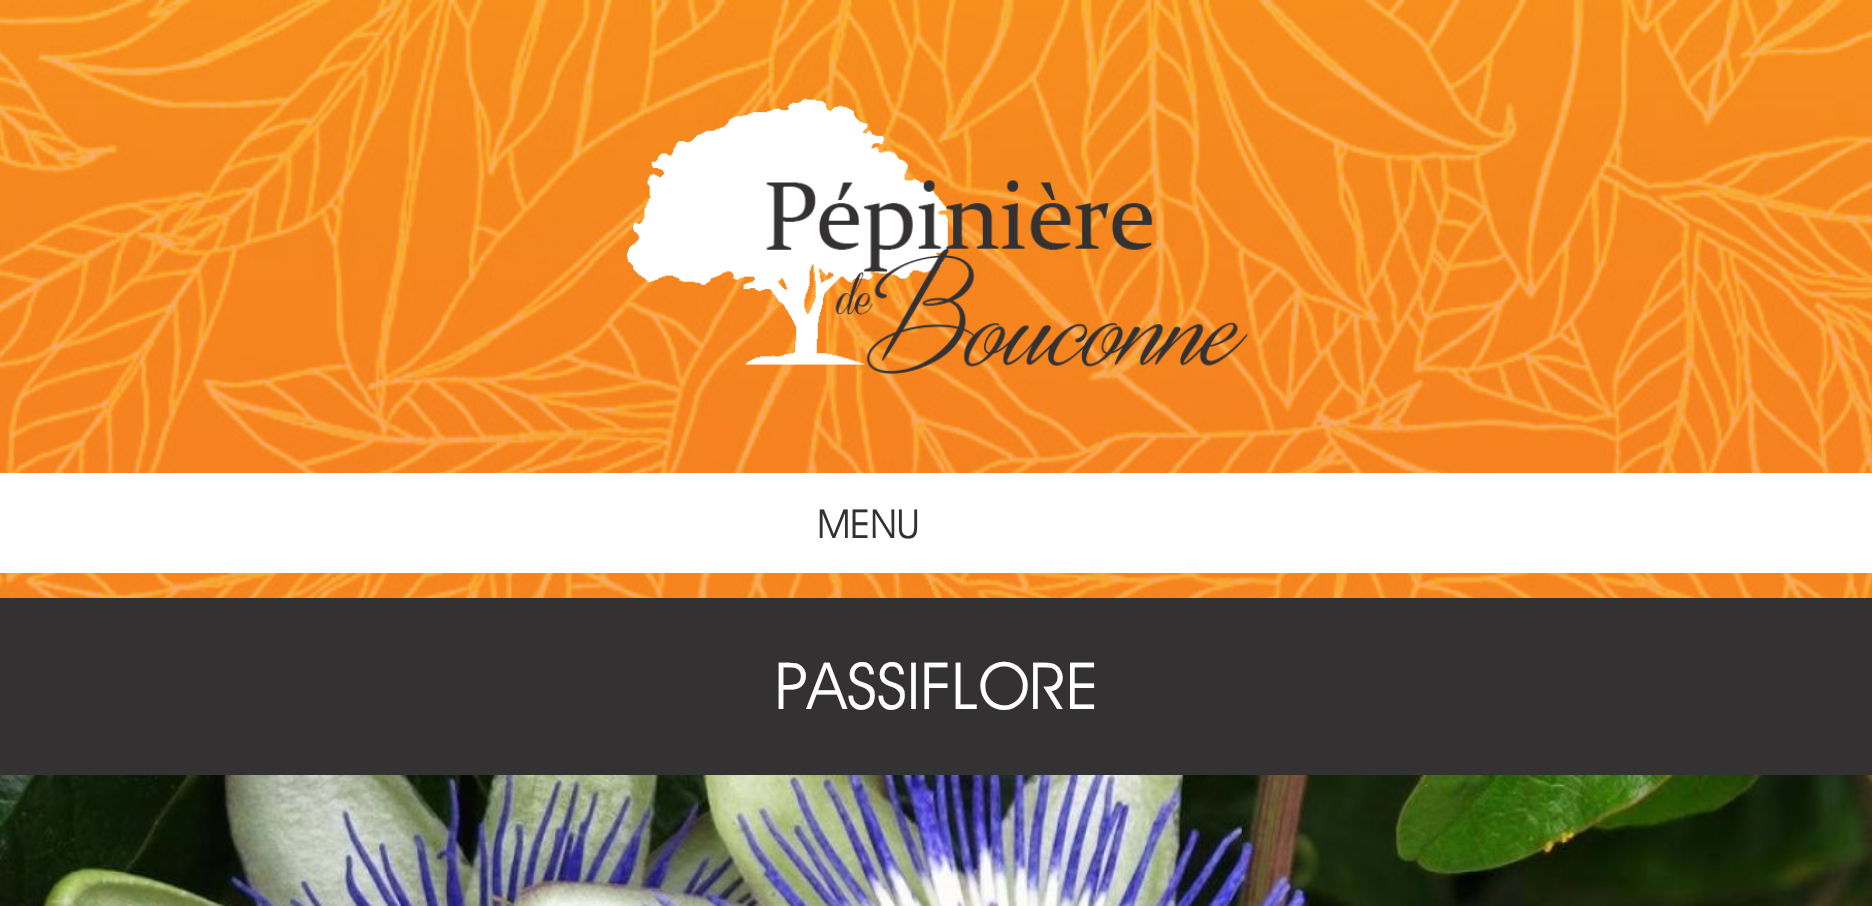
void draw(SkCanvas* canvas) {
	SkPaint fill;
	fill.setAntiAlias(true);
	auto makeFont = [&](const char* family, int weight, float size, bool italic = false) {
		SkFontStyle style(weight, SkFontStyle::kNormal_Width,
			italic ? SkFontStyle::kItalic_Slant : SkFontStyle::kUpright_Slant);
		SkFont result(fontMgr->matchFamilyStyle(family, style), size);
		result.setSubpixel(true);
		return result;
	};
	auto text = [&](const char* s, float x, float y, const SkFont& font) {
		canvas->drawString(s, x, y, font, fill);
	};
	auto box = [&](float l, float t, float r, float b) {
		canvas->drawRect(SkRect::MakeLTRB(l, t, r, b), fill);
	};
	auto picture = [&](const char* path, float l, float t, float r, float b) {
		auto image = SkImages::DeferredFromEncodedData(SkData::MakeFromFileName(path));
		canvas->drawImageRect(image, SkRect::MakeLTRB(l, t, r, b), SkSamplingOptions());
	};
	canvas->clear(0xFFFFFFFF);
	picture("image0.png", 0, 0, 1872, 598);
	picture("image1.png", 626, 98, 1249, 374);
	fill.setColor(0xFFFFFFFF);
	box(0, 473, 1872, 573);
	fill.setColor(0xFF333132);
	box(0, 598, 1872, 775);
	picture("image2.png", 0, 775, 1872, 906);
	auto font1 = makeFont("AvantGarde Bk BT", 400, 40);
	text("MENU", 817, 538, font1);
	auto font2 = makeFont("AvantGarde Bk BT", 400, 65);
	fill.setColor(0xFFFFFFFF);
	text("PASSIFLORE", 775, 709, font2);
}
